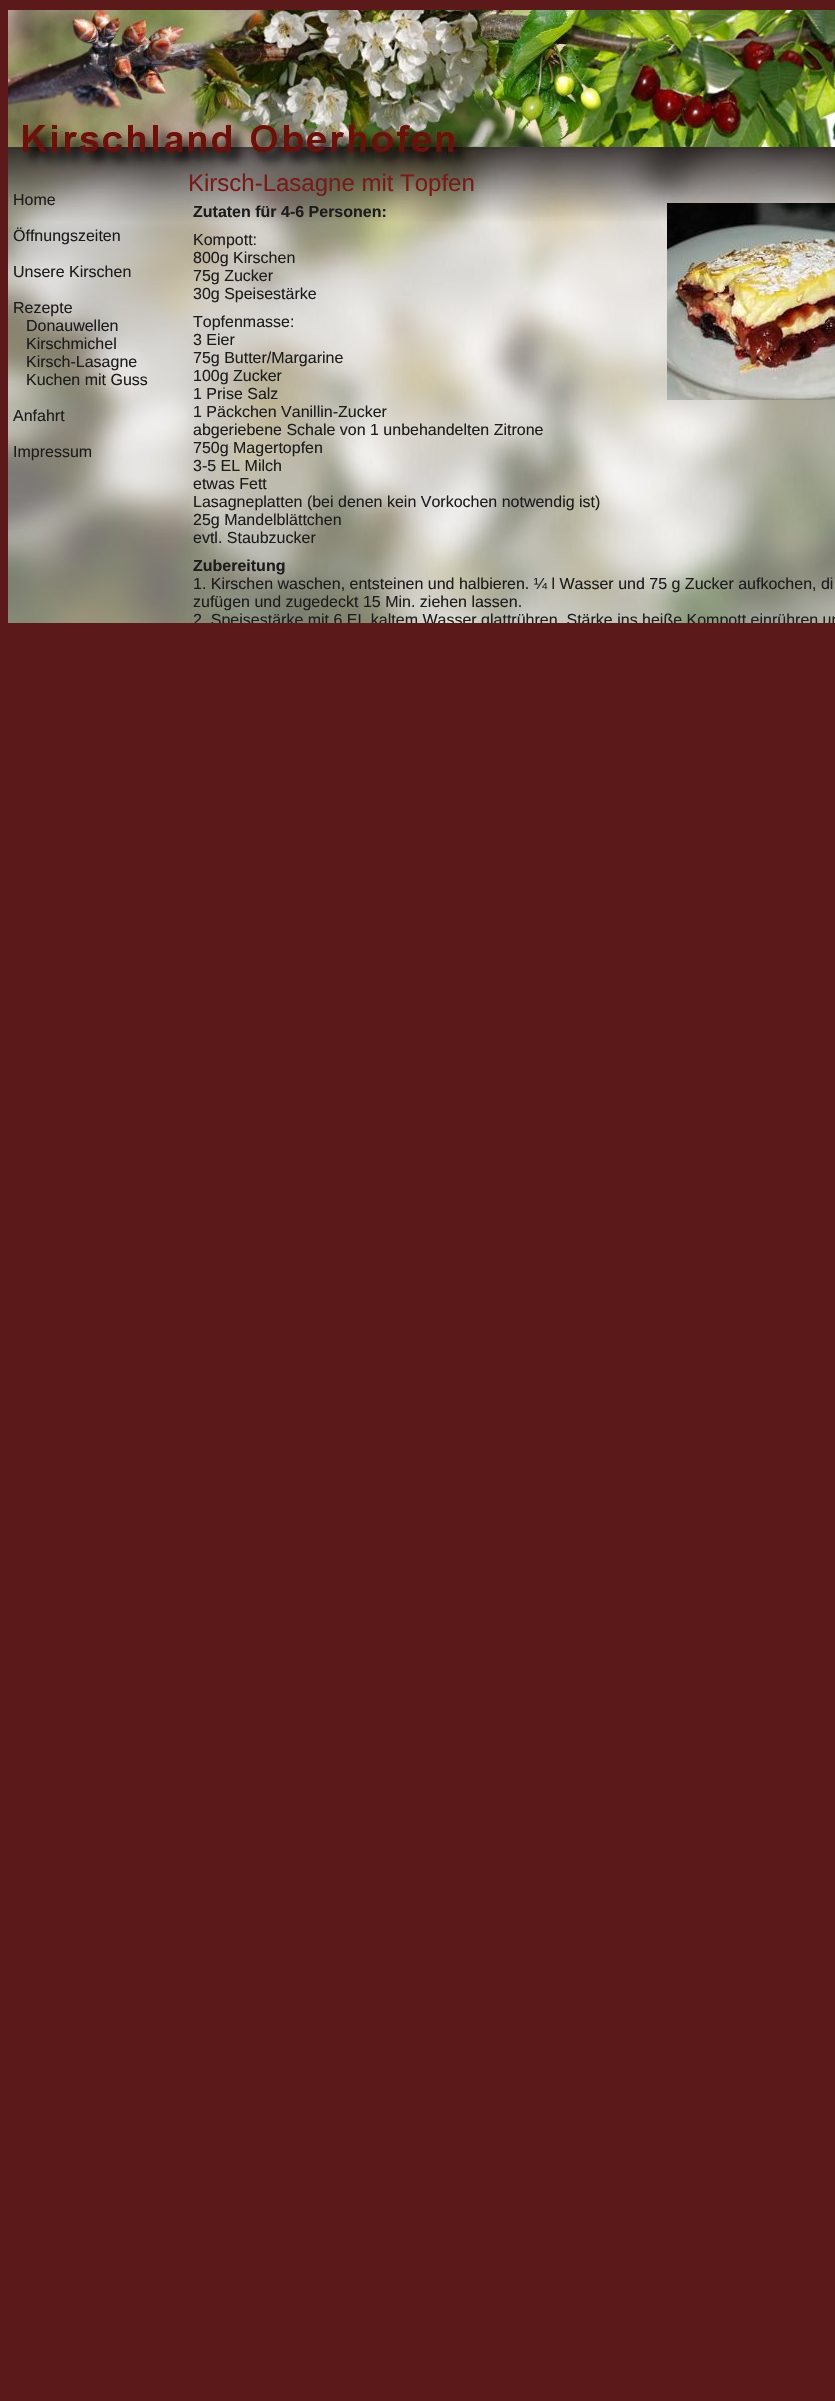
void draw(SkCanvas* canvas) {
	SkPaint fill;
	fill.setAntiAlias(true);
	auto makeFont = [&](const char* family, int weight, float size, bool italic = false) {
		SkFontStyle style(weight, SkFontStyle::kNormal_Width,
			italic ? SkFontStyle::kItalic_Slant : SkFontStyle::kUpright_Slant);
		SkFont result(fontMgr->matchFamilyStyle(family, style), size);
		result.setSubpixel(true);
		return result;
	};
	auto text = [&](const char* s, float x, float y, const SkFont& font) {
		canvas->drawString(s, x, y, font, fill);
	};
	auto picture = [&](const char* path, float l, float t, float r, float b) {
		auto image = SkImages::DeferredFromEncodedData(SkData::MakeFromFileName(path));
		canvas->drawImageRect(image, SkRect::MakeLTRB(l, t, r, b), SkSamplingOptions());
	};
	canvas->clear(0xFF5B1A19);
	picture("image0.png", 8, 10, 835, 147);
	picture("image1.png", 8, 147, 188, 623);
	picture("image2.png", 188, 147, 835, 623);
	picture("image3.png", 667, 203, 835, 400);
	auto font1 = makeFont("Liberation Sans", 400, 16);
	fill.setColor(0xFF1C1C1C);
	text("Home", 13, 205, font1);
	text("Öffnungszeiten", 13, 241, font1);
	text("Unsere Kirschen", 13, 277, font1);
	text("Rezepte", 13, 313, font1);
	text("Donauwellen", 26, 331, font1);
	text("Kirschmichel", 26, 349, font1);
	text("Kirsch-Lasagne", 26, 367, font1);
	text("Kuchen mit Guss", 26, 385, font1);
	text("Anfahrt", 13, 421, font1);
	text("Impressum", 13, 457, font1);
	auto font2 = makeFont("Liberation Sans", 400, 24);
	fill.setColor(0xFF761B19);
	text("Kirsch-Lasagne mit Topfen", 188, 191, font2);
	auto font3 = makeFont("Liberation Sans", 700, 16);
	fill.setColor(0xFF1C1C1C);
	text("Zutaten für 4-6 Personen:", 193, 217, font3);
	text("Kompott:", 193, 245, font1);
	text("800g Kirschen", 193, 263, font1);
	text("75g Zucker", 193, 281, font1);
	text("30g Speisestärke", 193, 299, font1);
	text("Topfenmasse:", 193, 327, font1);
	text("3 Eier", 193, 345, font1);
	text("75g Butter/Margarine", 193, 363, font1);
	text("100g Zucker", 193, 381, font1);
	text("1 Prise Salz", 193, 399, font1);
	text("1 Päckchen Vanillin-Zucker", 193, 417, font1);
	text("abgeriebene Schale von 1 unbehandelten Zitrone", 193, 435, font1);
	text("750g Magertopfen", 193, 453, font1);
	text("3-5 EL Milch", 193, 471, font1);
	text("etwas Fett", 193, 489, font1);
	text("Lasagneplatten (bei denen kein Vorkochen notwendig ist)", 193, 507, font1);
	text("25g Mandelblättchen", 193, 525, font1);
	text("evtl. Staubzucker", 193, 543, font1);
	text("Zubereitung", 193, 571, font3);
	text("1. Kirschen waschen, entsteinen und halbieren. ¼ l Wasser und 75 g Zucker aufkochen, di", 193, 589, font1);
	text("zufügen und zugedeckt 15 Min. ziehen lassen.", 193, 607, font1);
	canvas->save();
	canvas->clipRect(SkRect::MakeLTRB(188, 147, 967, 623));
	text("2. Speisestärke mit 6 EL kaltem Wasser glattrühren. Stärke ins heiße Kompott einrühren un", 193, 625, font1);
	canvas->restore();
}
